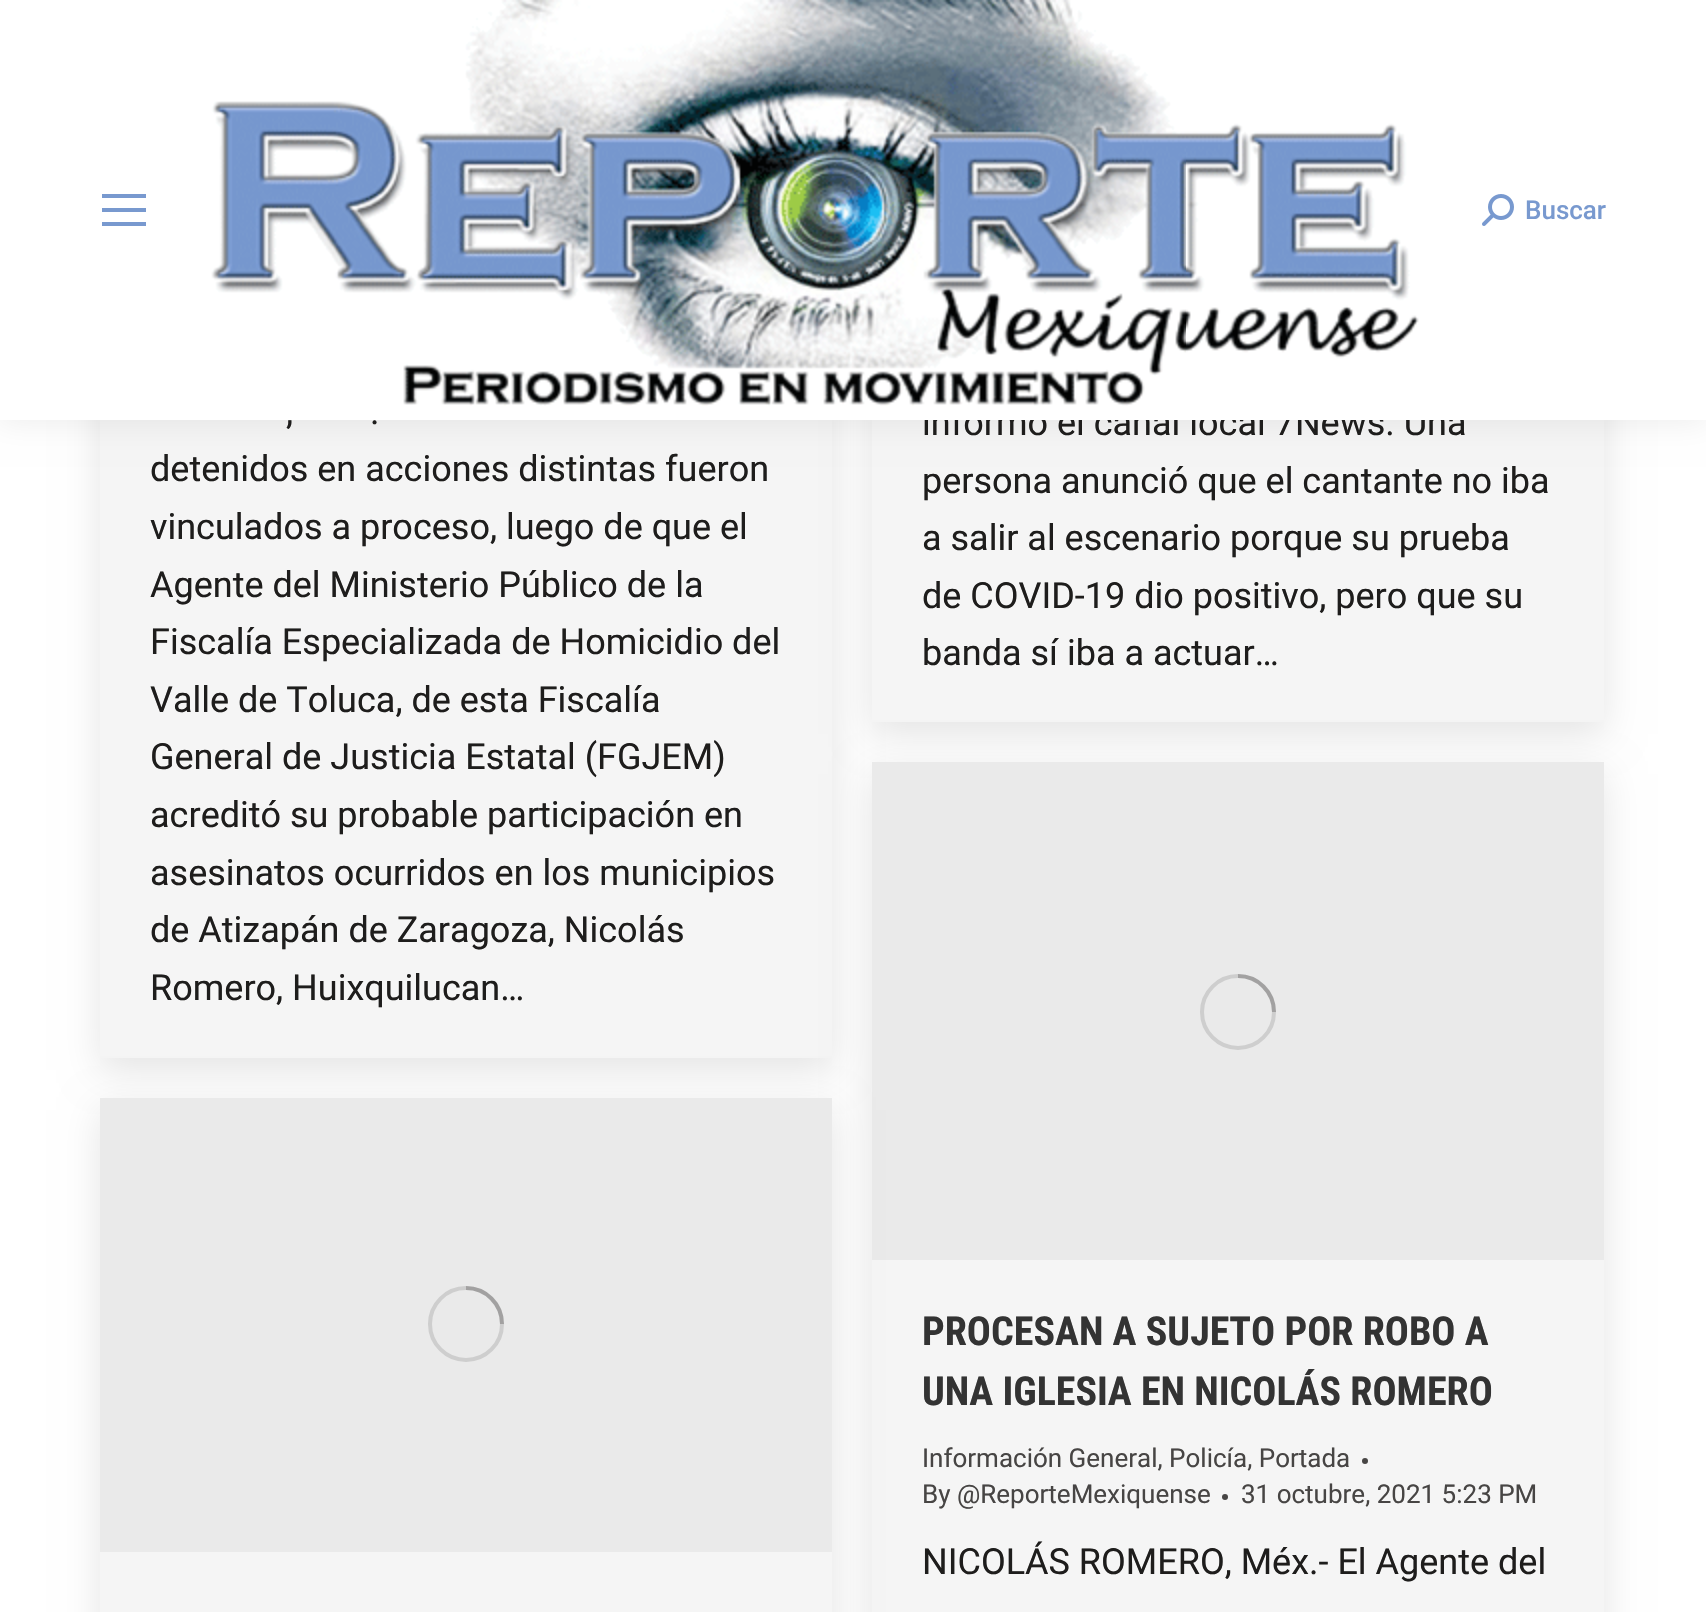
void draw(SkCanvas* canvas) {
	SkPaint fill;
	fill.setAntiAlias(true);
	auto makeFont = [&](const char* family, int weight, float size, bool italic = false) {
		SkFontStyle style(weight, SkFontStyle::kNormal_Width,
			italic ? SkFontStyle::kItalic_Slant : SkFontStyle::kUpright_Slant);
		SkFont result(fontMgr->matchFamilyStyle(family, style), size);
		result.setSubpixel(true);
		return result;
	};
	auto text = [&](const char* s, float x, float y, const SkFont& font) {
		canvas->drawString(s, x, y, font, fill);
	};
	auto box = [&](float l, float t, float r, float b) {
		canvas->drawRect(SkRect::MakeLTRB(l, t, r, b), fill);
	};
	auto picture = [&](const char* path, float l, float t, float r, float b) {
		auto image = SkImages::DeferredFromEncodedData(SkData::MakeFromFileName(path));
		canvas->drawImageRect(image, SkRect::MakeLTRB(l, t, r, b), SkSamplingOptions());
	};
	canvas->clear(0xFFFFFFFF);
	fill.setColor(0x1A000000);
	fill.setMaskFilter(SkMaskFilter::MakeBlur(kNormal_SkBlurStyle, 18));
	canvas->drawRect(SkRect::MakeLTRB(100, -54, 832, 1070), fill);
	fill.setMaskFilter(nullptr);
	fill.setColor(0xFFF5F5F5);
	box(100, 420, 832, 1058);
	fill.setColor(0x1A000000);
	fill.setMaskFilter(SkMaskFilter::MakeBlur(kNormal_SkBlurStyle, 18));
	canvas->drawRect(SkRect::MakeLTRB(872, -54, 1604, 734), fill);
	fill.setMaskFilter(nullptr);
	fill.setColor(0xFFF5F5F5);
	box(872, 420, 1604, 722);
	fill.setColor(0x12000000);
	fill.setMaskFilter(SkMaskFilter::MakeBlur(kNormal_SkBlurStyle, 15));
	canvas->drawRect(SkRect::MakeLTRB(-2, -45, 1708, 422), fill);
	fill.setMaskFilter(nullptr);
	fill.setColor(0x1A000000);
	fill.setMaskFilter(SkMaskFilter::MakeBlur(kNormal_SkBlurStyle, 18));
	canvas->drawRect(SkRect::MakeLTRB(872, 774, 1604, 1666), fill);
	fill.setMaskFilter(nullptr);
	fill.setColor(0xFFF5F5F5);
	box(872, 1260, 1604, 1612);
	fill.setColor(0xFFEAEAEA);
	box(872, 762, 1604, 1260);
	fill.setColor(0x1A000000);
	fill.setMaskFilter(SkMaskFilter::MakeBlur(kNormal_SkBlurStyle, 18));
	canvas->drawRect(SkRect::MakeLTRB(100, 1110, 832, 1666), fill);
	fill.setMaskFilter(nullptr);
	fill.setColor(0xFFF5F5F5);
	box(100, 1552, 832, 1612);
	fill.setColor(0xFFEAEAEA);
	box(100, 1098, 832, 1552);
	fill.setStyle(SkPaint::kStroke_Style);
	fill.setStrokeWidth(4);
	fill.setColor(0xFFCECECE);
	canvas->drawCircle(466, 1324, 36, fill);
	fill.setColor(0x401E1D1C);
	canvas->drawPath(SkPathBuilder().moveTo(502, 1324).cubicTo(502, 1304, 486, 1288, 466, 1288).detach(), fill);
	fill.setColor(0xFFCECECE);
	canvas->drawCircle(1238, 1012, 36, fill);
	fill.setColor(0x401E1D1C);
	canvas->drawPath(SkPathBuilder().moveTo(1274, 1012).cubicTo(1274, 992, 1258, 976, 1238, 976).detach(), fill);
	fill.setStyle(SkPaint::kFill_Style);
	fill.setColor(0xFF474544);
	canvas->drawCircle(1365, 1461, 3, fill);
	canvas->drawCircle(1225, 1497, 3, fill);
	auto font1 = makeFont("Roboto", 400, 36);
	fill.setColor(0xFF1E1D1C);
	text(",", 286, 424, font1);
	text(".", 370, 424, font1);
	text("detenidos en acciones distintas fueron", 150, 481, font1);
	text("vinculados a proceso, luego de que el", 150, 539, font1);
	text("Agente del Ministerio Público de la", 150, 597, font1);
	text("Fiscalía Especializada de Homicidio del", 150, 654, font1);
	text("Valle de Toluca, de esta Fiscalía", 150, 712, font1);
	text("General de Justicia Estatal (FGJEM)", 150, 769, font1);
	text("acreditó su probable participación en", 150, 827, font1);
	text("asesinatos ocurridos en los municipios", 150, 885, font1);
	text("de Atizapán de Zaragoza, Nicolás", 150, 942, font1);
	text("Romero, Huixquilucan…", 150, 1000, font1);
	text("informó el canal local 7News. Una", 922, 435, font1);
	fill.setColor(0xFFFFFFFF);
	box(0, 0, 1706, 420);
	auto font2 = makeFont("Roboto", 500, 26);
	fill.setColor(0xFF7899CF);
	text("Buscar", 1525, 219, font2);
	picture("image1.png", 1482, 194, 1514, 226);
	box(102, 222, 146, 226);
	box(102, 208, 146, 212);
	box(102, 194, 146, 198);
	picture("image0.png", 211, 0, 1419, 406);
	fill.setColor(0xFF1E1D1C);
	text("persona anunció que el cantante no iba", 922, 493, font1);
	text("a salir al escenario porque su prueba", 922, 550, font1);
	text("de COVID-19 dio positivo, pero que su", 922, 608, font1);
	text("banda sí iba a actuar…", 922, 665, font1);
	auto font3 = makeFont("Roboto Condensed", 700, 40);
	fill.setColor(0xFF333333);
	text("PROCESAN A SUJETO POR ROBO A", 922, 1345, font3);
	text("UNA IGLESIA EN NICOLÁS ROMERO", 922, 1405, font3);
	auto font4 = makeFont("Roboto", 400, 26);
	fill.setColor(0xFF474544);
	text("Información General, Policía, Portada", 922, 1467, font4);
	text("By @ReporteMexiquense", 922, 1503, font4);
	text("31 octubre, 2021 5:23 PM", 1241, 1503, font4);
	fill.setColor(0xFF1E1D1C);
	text("NICOLÁS ROMERO, Méx.- El Agente del", 922, 1574, font1);
}
